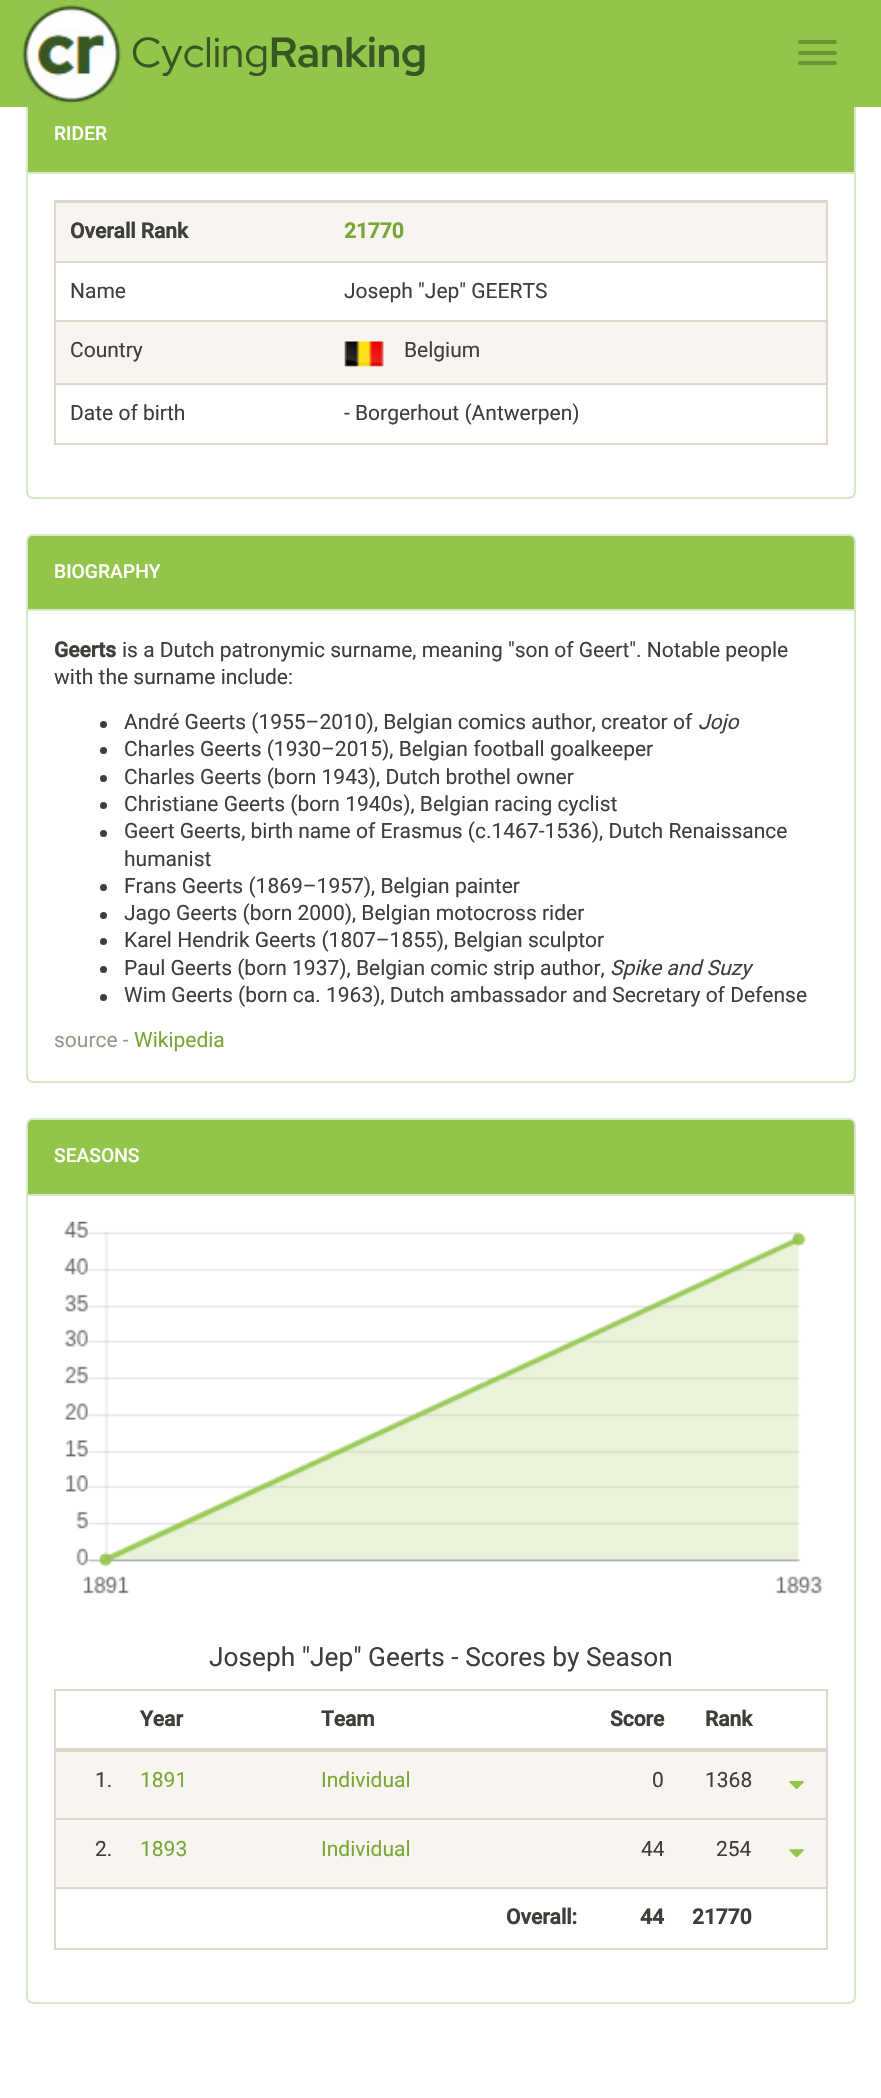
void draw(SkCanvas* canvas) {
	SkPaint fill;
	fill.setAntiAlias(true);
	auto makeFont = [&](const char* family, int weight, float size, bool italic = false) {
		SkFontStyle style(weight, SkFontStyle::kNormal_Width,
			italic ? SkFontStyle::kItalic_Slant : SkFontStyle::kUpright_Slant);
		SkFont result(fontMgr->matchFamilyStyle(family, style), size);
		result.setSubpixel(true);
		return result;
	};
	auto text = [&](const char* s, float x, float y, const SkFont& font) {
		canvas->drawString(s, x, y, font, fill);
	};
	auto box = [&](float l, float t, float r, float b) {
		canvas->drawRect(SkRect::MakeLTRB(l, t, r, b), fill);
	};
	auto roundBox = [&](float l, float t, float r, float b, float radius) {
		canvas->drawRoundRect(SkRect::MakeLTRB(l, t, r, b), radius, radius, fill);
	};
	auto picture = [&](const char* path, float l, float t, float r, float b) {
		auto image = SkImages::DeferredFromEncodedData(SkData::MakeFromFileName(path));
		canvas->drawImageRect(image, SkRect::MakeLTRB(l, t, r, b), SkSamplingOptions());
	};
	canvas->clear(0xFFFFFFFF);
	fill.setStyle(SkPaint::kStroke_Style);
	fill.setStrokeWidth(2);
	fill.setColor(0xFFD6E9C6);
	canvas->drawRoundRect(SkRect::MakeLTRB(27, 97, 855, 498), 6, 6, fill);
	fill.setStyle(SkPaint::kFill_Style);
	fill.setColor(0xFF93C54B);
	box(0, 0, 881, 107);
	picture("image0.png", 18, 0, 124, 105);
	fill.setColor(0xFF6B9430);
	roundBox(798, 40, 837, 44, 2);
	roundBox(798, 51, 837, 55, 2);
	roundBox(798, 61, 837, 65, 2);
	fill.setColor(0xFF93C54B);
	box(28, 107, 854, 172);
	fill.setColor(0xFFD6E9C6);
	box(28, 172, 854, 174);
	fill.setStyle(SkPaint::kStroke_Style);
	fill.setColor(0xFFDFD7CA);
	canvas->drawRect(SkRect::MakeLTRB(55, 201, 827, 444), fill);
	fill.setStyle(SkPaint::kFill_Style);
	fill.setColor(0xFFF8F5F0);
	box(56, 203, 826, 261);
	fill.setColor(0xFFDFD7CA);
	box(56, 202, 826, 203);
	box(56, 261, 826, 263);
	fill.setColor(0xFFF8F5F0);
	box(56, 322, 826, 383);
	fill.setColor(0xFFDFD7CA);
	box(56, 320, 826, 322);
	picture("image1.png", 344, 341, 384, 367);
	box(56, 383, 826, 385);
	fill.setStyle(SkPaint::kStroke_Style);
	fill.setColor(0xFFD6E9C6);
	canvas->drawRoundRect(SkRect::MakeLTRB(27, 535, 855, 1082), 6, 6, fill);
	fill.setStyle(SkPaint::kFill_Style);
	fill.setColor(0xFF93C54B);
	canvas->drawPath(SkPathBuilder().moveTo(33, 536).lineTo(849, 536).cubicTo(852, 536, 854, 538, 854, 541).lineTo(854, 611).lineTo(28, 611).lineTo(28, 541).cubicTo(28, 538, 30, 536, 33, 536).close().detach(), fill);
	fill.setColor(0xFFD6E9C6);
	box(28, 609, 854, 611);
	fill.setColor(0xFF3E3F3A);
	canvas->drawCircle(103.5f, 724.5f, 3.5f, fill);
	canvas->drawCircle(103.5f, 750.5f, 3.5f, fill);
	canvas->drawCircle(103.5f, 778.5f, 3.5f, fill);
	canvas->drawCircle(103.5f, 805.5f, 3.5f, fill);
	canvas->drawCircle(103.5f, 833.5f, 3.5f, fill);
	canvas->drawCircle(103.5f, 887.5f, 3.5f, fill);
	canvas->drawCircle(103.5f, 915.5f, 3.5f, fill);
	canvas->drawCircle(103.5f, 941.5f, 3.5f, fill);
	canvas->drawCircle(103.5f, 969.5f, 3.5f, fill);
	canvas->drawCircle(103.5f, 997.5f, 3.5f, fill);
	fill.setStyle(SkPaint::kStroke_Style);
	fill.setColor(0xFFD6E9C6);
	canvas->drawRoundRect(SkRect::MakeLTRB(27, 1119, 855, 2003), 6, 6, fill);
	fill.setStyle(SkPaint::kFill_Style);
	fill.setColor(0xFF93C54B);
	canvas->drawPath(SkPathBuilder().moveTo(33, 1120).lineTo(849, 1120).cubicTo(852, 1120, 854, 1122, 854, 1125).lineTo(854, 1195).lineTo(28, 1195).lineTo(28, 1125).cubicTo(28, 1122, 30, 1120, 33, 1120).close().detach(), fill);
	fill.setColor(0xFFD6E9C6);
	box(28, 1194, 854, 1196);
	picture("image2.png", 64, 1221, 823, 1594);
	fill.setStyle(SkPaint::kStroke_Style);
	fill.setColor(0xFFDFD7CA);
	canvas->drawRect(SkRect::MakeLTRB(55, 1690, 827, 1949), fill);
	fill.setStyle(SkPaint::kFill_Style);
	box(56, 1748, 826, 1752);
	fill.setColor(0xFFF8F5F0);
	box(56, 1752, 826, 1818);
	picture("image3.png", 789, 1780, 804, 1790);
	fill.setColor(0xFFDFD7CA);
	box(56, 1818, 826, 1820);
	fill.setColor(0xFFF8F5F0);
	box(56, 1820, 826, 1887);
	picture("image4.png", 789, 1849, 804, 1858);
	fill.setColor(0xFFDFD7CA);
	box(56, 1887, 826, 1889);
	auto font1 = makeFont("Red Hat Display", 400, 42);
	fill.setColor(0xFF385723);
	text("Cycling", 131, 67, font1);
	auto font2 = makeFont("Red Hat Display", 700, 42);
	text("Ranking", 269, 67, font2);
	auto font3 = makeFont("Roboto", 500, 19.25f);
	fill.setColor(0xFFFFFFFF);
	text("RIDER", 54, 140, font3);
	auto font4 = makeFont("Roboto", 700, 21);
	fill.setColor(0xFF3E3F3A);
	text("Overall Rank", 70, 238, font4);
	fill.setColor(0xFF79A736);
	text("21770", 344, 238, font4);
	auto font5 = makeFont("Roboto", 400, 21);
	fill.setColor(0xFF3E3F3A);
	text("Name", 70, 298, font5);
	text("Joseph \"Jep\" GEERTS", 344, 298, font5);
	text("Country", 70, 357, font5);
	text("Belgium", 404, 357, font5);
	text("Date of birth", 70, 420, font5);
	text("- Borgerhout (Antwerpen)", 344, 420, font5);
	fill.setColor(0xFFFFFFFF);
	text("BIOGRAPHY", 54, 578, font3);
	fill.setColor(0xFF3E3F3A);
	text("Geerts", 54, 657, font4);
	text("is a Dutch patronymic surname, meaning \"son of Geert\". Notable people", 122, 657, font5);
	text("with the surname include:", 54, 684, font5);
	text("André Geerts (1955–2010), Belgian comics author, creator of", 124, 729, font5);
	auto font6 = makeFont("Roboto", 400, 21, true);
	text("Jojo", 698, 729, font6);
	text("Charles Geerts (1930–2015), Belgian football goalkeeper", 124, 756, font5);
	text("Charles Geerts (born 1943), Dutch brothel owner", 124, 784, font5);
	text("Christiane Geerts (born 1940s), Belgian racing cyclist", 124, 811, font5);
	text("Geert Geerts, birth name of Erasmus (c.1467-1536), Dutch Renaissance", 124, 838, font5);
	text("humanist", 124, 866, font5);
	text("Frans Geerts (1869–1957), Belgian painter", 124, 893, font5);
	text("Jago Geerts (born 2000), Belgian motocross rider", 124, 920, font5);
	text("Karel Hendrik Geerts (1807–1855), Belgian sculptor", 124, 947, font5);
	text("Paul Geerts (born 1937), Belgian comic strip author,", 124, 975, font5);
	text("Spike and Suzy", 610, 975, font6);
	text("Wim Geerts (born ca. 1963), Dutch ambassador and Secretary of Defense", 124, 1002, font5);
	fill.setColor(0xFF98978B);
	text("source -", 54, 1047, font5);
	fill.setColor(0xFF79A736);
	text("Wikipedia", 134, 1047, font5);
	fill.setColor(0xFFFFFFFF);
	text("SEASONS", 54, 1162, font3);
	auto font7 = makeFont("Roboto", 400, 26.25f);
	fill.setColor(0xFF3E3F3A);
	text("Joseph \"Jep\" Geerts - Scores by Season", 209, 1666, font7);
	text("Year", 140, 1726, font4);
	text("Team", 321, 1726, font4);
	text("Score", 610, 1726, font4);
	text("Rank", 705, 1726, font4);
	text("1.", 95, 1787, font5);
	fill.setColor(0xFF79A736);
	text("1891", 140, 1787, font5);
	text("Individual", 321, 1787, font5);
	fill.setColor(0xFF3E3F3A);
	text("0", 652, 1787, font5);
	text("1368", 705, 1787, font5);
	text("2.", 95, 1856, font5);
	fill.setColor(0xFF79A736);
	text("1893", 140, 1856, font5);
	text("Individual", 321, 1856, font5);
	fill.setColor(0xFF3E3F3A);
	text("44", 641, 1856, font5);
	text("254", 716, 1856, font5);
	text("Overall:", 506, 1924, font4);
	text("44", 640, 1924, font4);
	text("21770", 692, 1924, font4);
}
